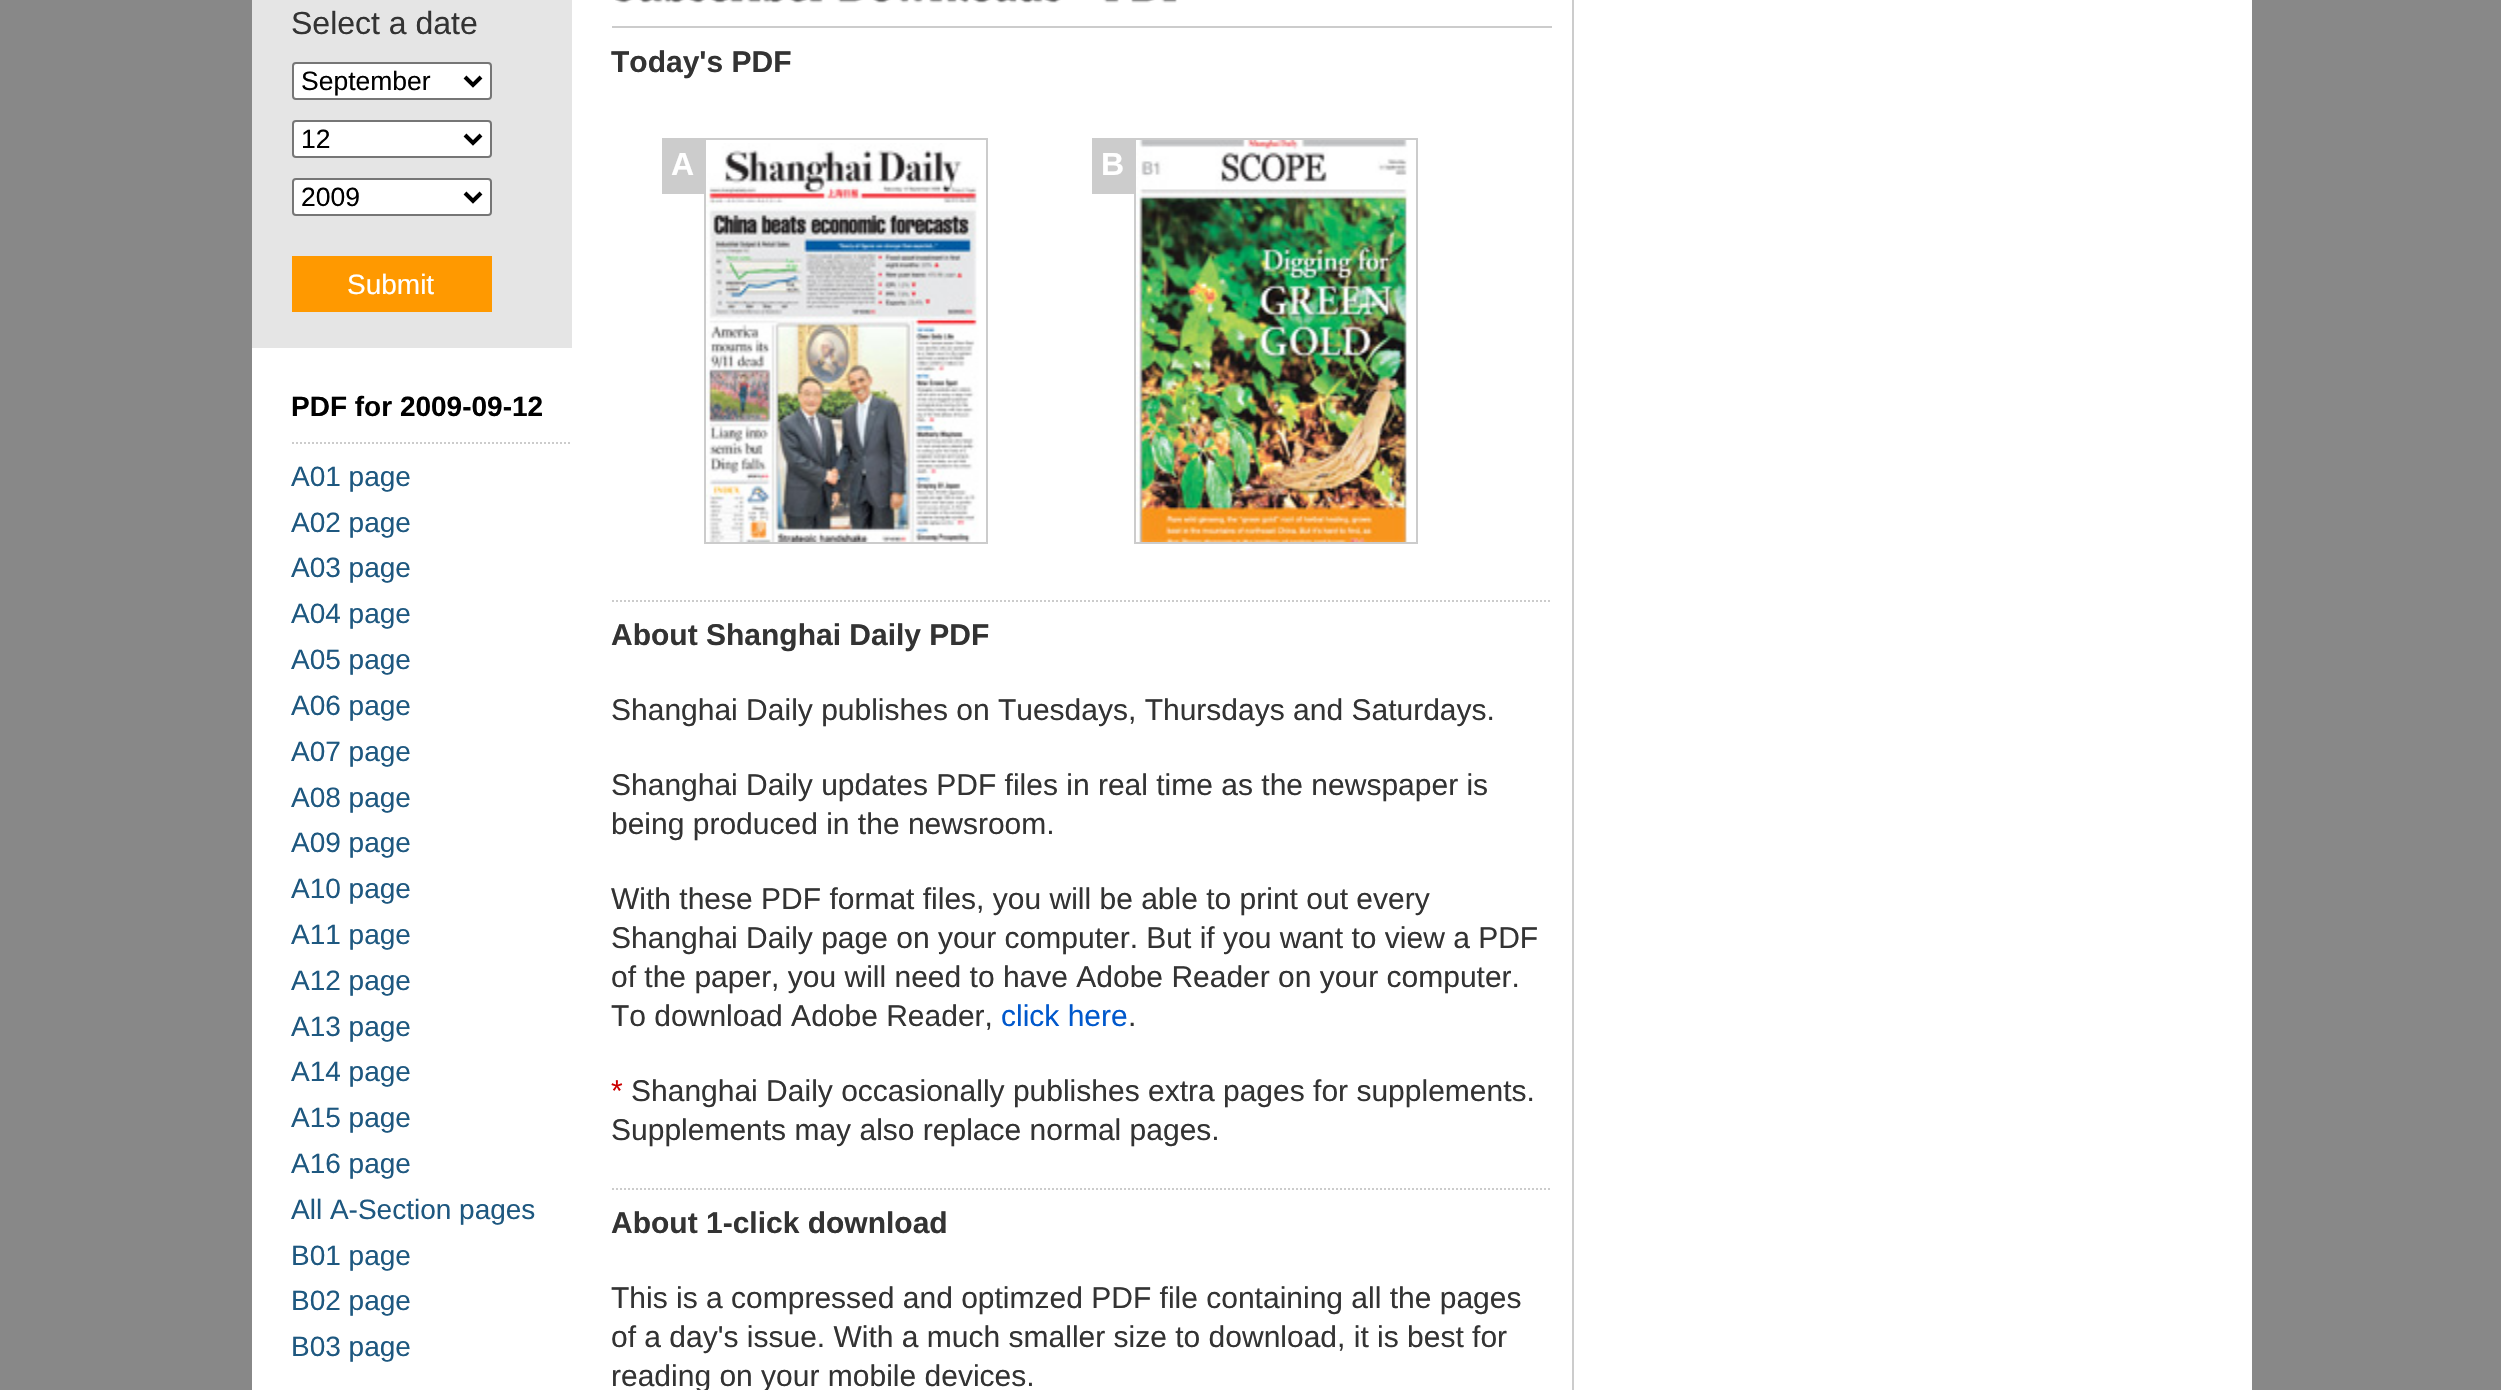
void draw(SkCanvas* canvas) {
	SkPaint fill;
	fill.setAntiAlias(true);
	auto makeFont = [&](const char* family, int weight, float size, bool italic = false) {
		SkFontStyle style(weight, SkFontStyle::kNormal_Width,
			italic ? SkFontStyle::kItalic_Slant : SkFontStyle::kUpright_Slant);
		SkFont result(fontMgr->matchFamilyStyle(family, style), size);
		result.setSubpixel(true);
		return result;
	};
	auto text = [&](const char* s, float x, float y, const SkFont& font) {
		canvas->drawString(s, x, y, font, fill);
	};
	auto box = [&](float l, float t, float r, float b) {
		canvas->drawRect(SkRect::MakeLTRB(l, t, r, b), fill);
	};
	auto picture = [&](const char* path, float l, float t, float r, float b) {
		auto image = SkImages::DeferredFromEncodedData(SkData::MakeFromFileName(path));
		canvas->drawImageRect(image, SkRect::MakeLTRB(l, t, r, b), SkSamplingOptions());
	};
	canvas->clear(0xFF888888);
	fill.setColor(0xFFFFFFFF);
	box(252, 0, 2252, 1390);
	fill.setColor(0xFFE5E5E5);
	box(252, 0, 572, 348);
	fill.setColor(0xFFFFFFFF);
	canvas->drawRoundRect(SkRect::MakeLTRB(293, 63, 491, 99), 3, 3, fill);
	fill.setStyle(SkPaint::kStroke_Style);
	fill.setStrokeWidth(2);
	fill.setColor(0xFF767676);
	canvas->drawRoundRect(SkRect::MakeLTRB(293, 63, 491, 99), 3, 3, fill);
	fill.setStrokeWidth(4);
	fill.setColor(0xFF000000);
	canvas->drawPath(SkPathBuilder().moveTo(465, 77).lineTo(473, 85).lineTo(481, 77).detach(), fill);
	fill.setStyle(SkPaint::kFill_Style);
	fill.setColor(0xFFFFFFFF);
	canvas->drawRoundRect(SkRect::MakeLTRB(293, 121, 491, 157), 3, 3, fill);
	fill.setStyle(SkPaint::kStroke_Style);
	fill.setStrokeWidth(2);
	fill.setColor(0xFF767676);
	canvas->drawRoundRect(SkRect::MakeLTRB(293, 121, 491, 157), 3, 3, fill);
	fill.setStrokeWidth(4);
	fill.setColor(0xFF000000);
	canvas->drawPath(SkPathBuilder().moveTo(465, 135).lineTo(473, 143).lineTo(481, 135).detach(), fill);
	fill.setStyle(SkPaint::kFill_Style);
	fill.setColor(0xFFFFFFFF);
	canvas->drawRoundRect(SkRect::MakeLTRB(293, 179, 491, 215), 3, 3, fill);
	fill.setStyle(SkPaint::kStroke_Style);
	fill.setStrokeWidth(2);
	fill.setColor(0xFF767676);
	canvas->drawRoundRect(SkRect::MakeLTRB(293, 179, 491, 215), 3, 3, fill);
	fill.setStrokeWidth(4);
	fill.setColor(0xFF000000);
	canvas->drawPath(SkPathBuilder().moveTo(465, 193).lineTo(473, 201).lineTo(481, 193).detach(), fill);
	fill.setStyle(SkPaint::kFill_Style);
	fill.setColor(0xFFFF9900);
	box(292, 256, 492, 312);
	fill.setStyle(SkPaint::kStroke_Style);
	fill.setStrokeWidth(2);
	fill.setColor(0xFFCCCCCC);
	fill.setPathEffect(SkDashPathEffect::Make({{2, 2}}, 0));
	canvas->drawPath(SkPathBuilder().moveTo(292, 443).lineTo(572, 443).detach(), fill);
	fill.setPathEffect(nullptr);
	fill.setStyle(SkPaint::kFill_Style);
	box(1572, 0, 1574, 1390);
	picture("image0.png", 615, 0, 823, 3);
	picture("image1.png", 837, 0, 1061, 3);
	picture("image2.png", 1103, 0, 1177, 3);
	box(612, 26, 1552, 28);
	box(662, 138, 704, 194);
	fill.setStyle(SkPaint::kStroke_Style);
	canvas->drawRect(SkRect::MakeLTRB(705, 139, 987, 543), fill);
	picture("image3.png", 706, 143, 979, 542);
	fill.setStyle(SkPaint::kFill_Style);
	box(1092, 138, 1134, 194);
	fill.setStyle(SkPaint::kStroke_Style);
	canvas->drawRect(SkRect::MakeLTRB(1135, 139, 1417, 543), fill);
	picture("image4.png", 1136, 140, 1408, 542);
	fill.setPathEffect(SkDashPathEffect::Make({{2, 2}}, 0));
	canvas->drawPath(SkPathBuilder().moveTo(612, 601).lineTo(1552, 601).detach(), fill);
	fill.setPathEffect(nullptr);
	fill.setPathEffect(SkDashPathEffect::Make({{2, 2}}, 0));
	canvas->drawPath(SkPathBuilder().moveTo(612, 1189).lineTo(1552, 1189).detach(), fill);
	fill.setPathEffect(nullptr);
	auto font1 = makeFont("Liberation Sans", 400, 32);
	fill.setStyle(SkPaint::kFill_Style);
	fill.setColor(0xFF333333);
	text("Select a date", 291, 34, font1);
	auto font2 = makeFont("Liberation Sans", 400, 26.5f);
	fill.setColor(0xFF000000);
	text("September", 301, 90, font2);
	text("12", 301, 148, font2);
	text("2009", 301, 206, font2);
	auto font3 = makeFont("Liberation Sans", 400, 28);
	fill.setColor(0xFFFFFFFF);
	text("Submit", 347, 294, font3);
	auto font4 = makeFont("Liberation Sans", 700, 28);
	fill.setColor(0xFF000000);
	text("PDF for 2009-09-12", 291, 416, font4);
	fill.setColor(0xFF1E5880);
	text("A01 page", 291, 486, font3);
	text("A02 page", 291, 532, font3);
	text("A03 page", 291, 577, font3);
	text("A04 page", 291, 623, font3);
	text("A05 page", 291, 669, font3);
	text("A06 page", 291, 715, font3);
	text("A07 page", 291, 761, font3);
	text("A08 page", 291, 807, font3);
	text("A09 page", 291, 852, font3);
	text("A10 page", 291, 898, font3);
	text("A11 page", 291, 944, font3);
	text("A12 page", 291, 990, font3);
	text("A13 page", 291, 1036, font3);
	text("A14 page", 291, 1081, font3);
	text("A15 page", 291, 1127, font3);
	text("A16 page", 291, 1173, font3);
	text("All A-Section pages", 291, 1219, font3);
	text("B01 page", 291, 1265, font3);
	text("B02 page", 291, 1310, font3);
	text("B03 page", 291, 1356, font3);
	auto font5 = makeFont("Liberation Sans", 700, 30);
	fill.setColor(0xFF333333);
	text("Today's PDF", 611, 72, font5);
	auto font6 = makeFont("Liberation Sans", 700, 32);
	fill.setColor(0xFFFFFFFF);
	text("A", 671, 175, font6);
	text("B", 1101, 175, font6);
	fill.setColor(0xFF333333);
	text("About Shanghai Daily PDF", 611, 645, font5);
	auto font7 = makeFont("Liberation Sans", 400, 30);
	text("Shanghai Daily publishes on Tuesdays, Thursdays and Saturdays.", 611, 720, font7);
	text("Shanghai Daily updates PDF files in real time as the newspaper is", 611, 795, font7);
	text("being produced in the newsroom.", 611, 834, font7);
	text("With these PDF format files, you will be able to print out every", 611, 909, font7);
	text("Shanghai Daily page on your computer. But if you want to view a PDF", 611, 948, font7);
	text("of the paper, you will need to have Adobe Reader on your computer.", 611, 987, font7);
	text("To download Adobe Reader,", 611, 1026, font7);
	fill.setColor(0xFF0058CC);
	text("click here", 1001, 1026, font7);
	fill.setColor(0xFF333333);
	text(".", 1128, 1026, font7);
	fill.setColor(0xFFCC0000);
	text("*", 611, 1101, font7);
	fill.setColor(0xFF333333);
	text("Shanghai Daily occasionally publishes extra pages for supplements.", 631, 1101, font7);
	text("Supplements may also replace normal pages.", 611, 1140, font7);
	text("About 1-click download", 611, 1233, font5);
	text("This is a compressed and optimzed PDF file containing all the pages", 611, 1308, font7);
	text("of a day's issue. With a much smaller size to download, it is best for", 611, 1347, font7);
	text("reading on your mobile devices.", 611, 1386, font7);
}
